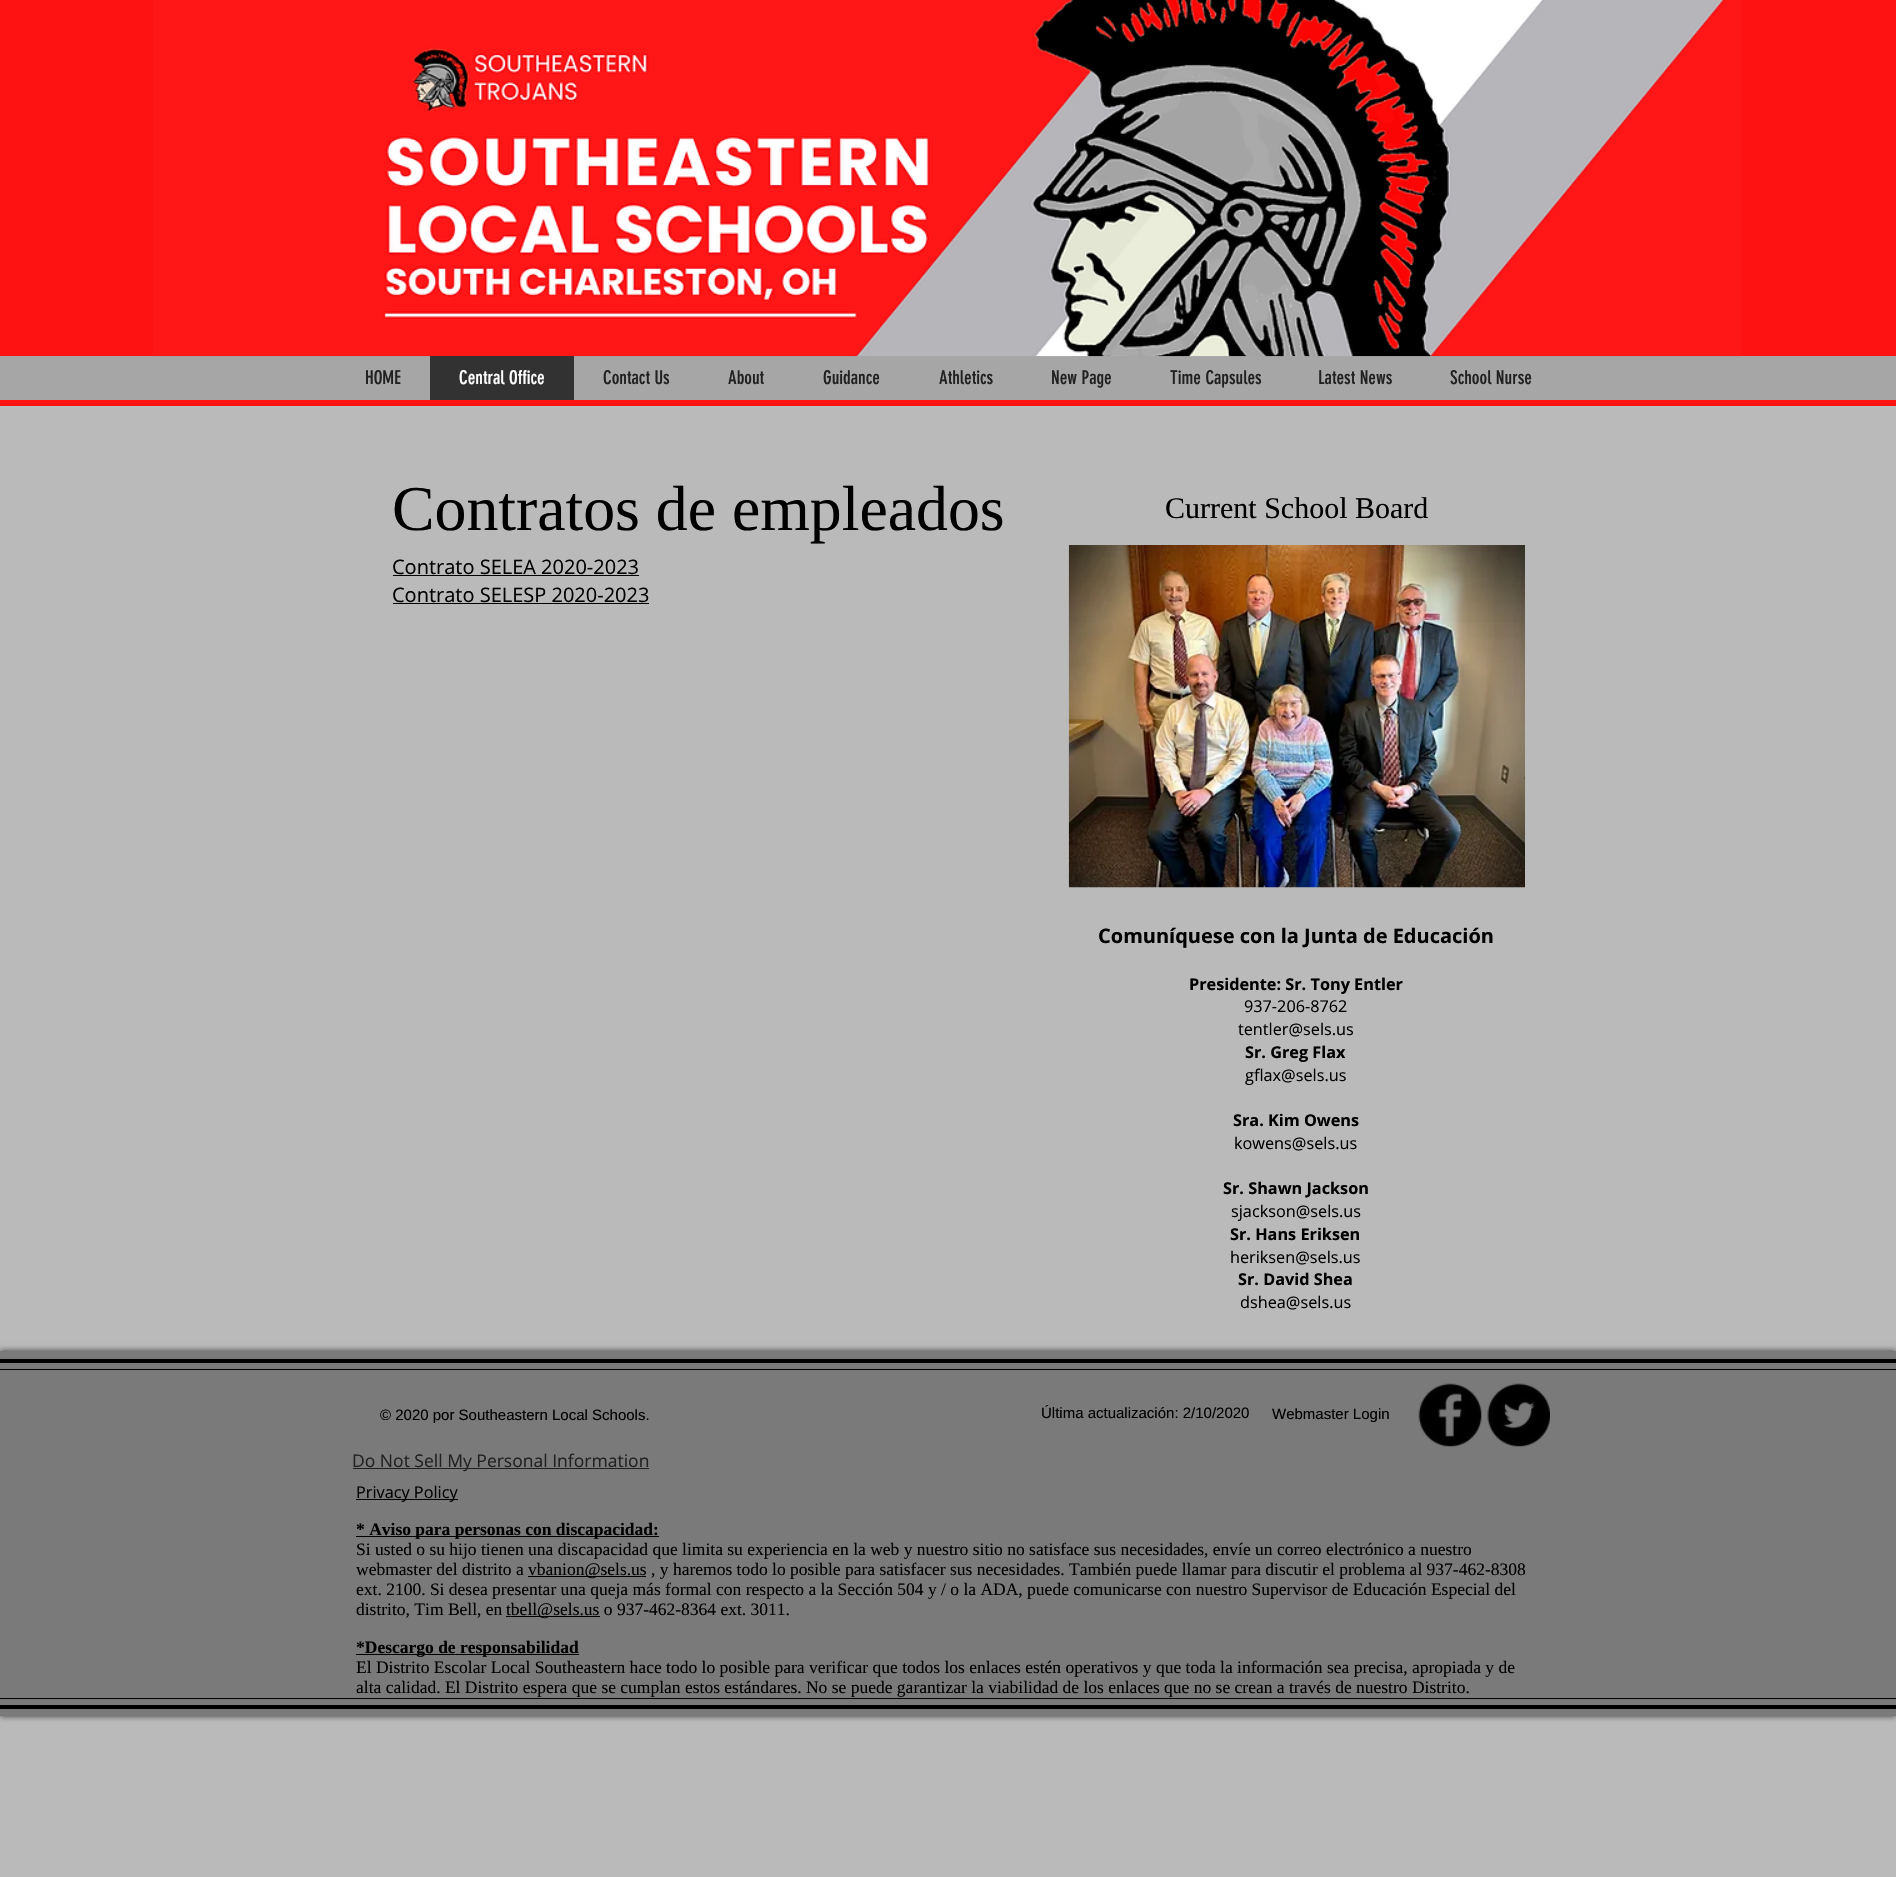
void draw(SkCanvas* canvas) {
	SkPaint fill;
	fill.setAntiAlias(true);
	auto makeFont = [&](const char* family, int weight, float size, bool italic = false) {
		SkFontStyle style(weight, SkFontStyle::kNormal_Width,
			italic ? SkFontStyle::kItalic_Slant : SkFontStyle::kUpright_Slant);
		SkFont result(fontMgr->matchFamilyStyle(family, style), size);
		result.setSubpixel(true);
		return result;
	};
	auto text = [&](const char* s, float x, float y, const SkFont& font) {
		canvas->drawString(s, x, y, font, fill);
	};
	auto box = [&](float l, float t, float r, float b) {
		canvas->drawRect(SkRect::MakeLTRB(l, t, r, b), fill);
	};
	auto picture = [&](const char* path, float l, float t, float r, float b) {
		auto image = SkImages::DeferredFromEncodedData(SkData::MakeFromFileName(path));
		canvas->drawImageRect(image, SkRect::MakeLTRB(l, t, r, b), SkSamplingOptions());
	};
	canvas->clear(0xFFBABABA);
	fill.setColor(0xFFFF1212);
	box(0, 0, 1896, 406);
	fill.setColor(0xFFA6A6A6);
	box(0, 356, 1896, 400);
	fill.setColor(0xFF323232);
	box(430, 356, 574, 400);
	picture("image0.png", 153, 0, 1741, 357);
	picture("image1.png", 1068, 545, 1525, 888);
	fill.setColor(0xFF000000);
	box(393, 575, 639, 576);
	box(393, 603, 649, 604);
	fill.setColor(0xB3000000);
	fill.setMaskFilter(SkMaskFilter::MakeBlur(kNormal_SkBlurStyle, 3));
	canvas->drawRect(SkRect::MakeLTRB(0, 1351, 1896, 1716), fill);
	fill.setMaskFilter(nullptr);
	fill.setColor(0xFF7A7A7A);
	box(0, 1351, 1896, 1716);
	fill.setColor(0xFF000000);
	box(0, 1359, 1896, 1363);
	box(0, 1705, 1896, 1709);
	box(0, 1369, 1896, 1370);
	box(0, 1698, 1896, 1699);
	picture("image2.png", 1418, 1383, 1482, 1447);
	picture("image3.png", 1487, 1383, 1550, 1447);
	fill.setColor(0xFF212121);
	box(353, 1468, 649, 1469);
	fill.setColor(0xFF000000);
	box(356, 1499, 458, 1500);
	box(356, 1536, 659, 1537);
	box(528, 1576, 646, 1577);
	box(506, 1616, 600, 1617);
	box(356, 1654, 579, 1655);
	auto font1 = makeFont("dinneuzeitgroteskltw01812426", 400, 18.75f);
	fill.setColor(0xFF212121);
	text("HOME", 365, 384, font1);
	fill.setColor(0xFFFFFFFF);
	text("Central Office", 459, 384, font1);
	fill.setColor(0xFF212121);
	text("Contact Us", 603, 384, font1);
	text("About", 728, 384, font1);
	text("Guidance", 823, 384, font1);
	text("Athletics", 939, 384, font1);
	text("New Page", 1051, 384, font1);
	text("Time Capsules", 1170, 384, font1);
	text("Latest News", 1318, 384, font1);
	text("School Nurse", 1450, 384, font1);
	auto font2 = makeFont("Liberation Serif", 400, 63.75f);
	fill.setColor(0xFF000000);
	text("Contratos de empleados", 392, 530, font2);
	auto font3 = makeFont("Liberation Serif", 400, 30);
	text("Current School Board", 1165, 518, font3);
	auto font4 = makeFont("Open Sans", 700, 20);
	text("Comuníquese con la Junta de Educación", 1098, 943, font4);
	auto font5 = makeFont("Open Sans", 700, 16.25f);
	text("Presidente: Sr. Tony Entler", 1189, 990, font5);
	auto font6 = makeFont("Open Sans", 400, 16.25f);
	text("937-206-8762", 1244, 1012, font6);
	text("tentler@sels.us", 1238, 1035, font6);
	text("Sr. Greg Flax", 1245, 1058, font5);
	text("gflax@sels.us", 1245, 1081, font6);
	text("Sra. Kim Owens", 1233, 1126, font5);
	text("kowens@sels.us", 1234, 1149, font6);
	text("Sr. Shawn Jackson", 1223, 1194, font5);
	text("sjackson@sels.us", 1231, 1217, font6);
	text("Sr. Hans Eriksen", 1230, 1240, font5);
	text("heriksen@sels.us", 1230, 1263, font6);
	text("Sr. David Shea", 1238, 1285, font5);
	text("dshea@sels.us", 1240, 1308, font6);
	auto font7 = makeFont("Open Sans", 400, 20);
	text("Contrato SELEA 2020-2023", 392, 574, font7);
	text("Contrato SELESP 2020-2023", 392, 602, font7);
	auto font8 = makeFont("Liberation Sans", 400, 15);
	text("© 2020 por Southeastern Local Schools.", 380, 1420, font8);
	text("Última actualización: 2/10/2020", 1041, 1418, font8);
	text("Webmaster Login", 1272, 1419, font8);
	auto font9 = makeFont("Open Sans", 400, 17.5f);
	fill.setColor(0xFF212121);
	text("Do Not Sell My Personal Information", 352, 1467, font9);
	fill.setColor(0xFF000000);
	text("Privacy Policy", 356, 1498, font6);
	auto font10 = makeFont("Liberation Serif", 700, 17.5f);
	text("* Aviso para personas con discapacidad:", 356, 1535, font10);
	auto font11 = makeFont("Liberation Serif", 400, 17.5f);
	text("Si usted o su hijo tienen una discapacidad que limita su experiencia en la web y nuestro sitio no satisface sus necesidades, envíe un correo electrónico a nuestro", 356, 1555, font11);
	text("webmaster del distrito a", 356, 1575, font11);
	text("vbanion@sels.us , y haremos todo lo posible para satisfacer sus necesidades. También puede llamar para discutir el problema al 937-462-8308", 528, 1575, font11);
	text("ext. 2100. Si desea presentar una queja más formal con respecto a la Sección 504 y / o la ADA, puede comunicarse con nuestro Supervisor de Educación Especial del", 356, 1595, font11);
	text("distrito, Tim Bell, en", 356, 1615, font11);
	text("tbell@sels.us o 937-462-8364 ext. 3011.", 506, 1615, font11);
	text("*Descargo de responsabilidad", 356, 1653, font10);
	text("El Distrito Escolar Local Southeastern hace todo lo posible para verificar que todos los enlaces estén operativos y que toda la información sea precisa, apropiada y de", 356, 1673, font11);
	text("alta calidad. El Distrito espera que se cumplan estos estándares. No se puede garantizar la viabilidad de los enlaces que no se crean a través de nuestro Distrito.", 356, 1693, font11);
}
